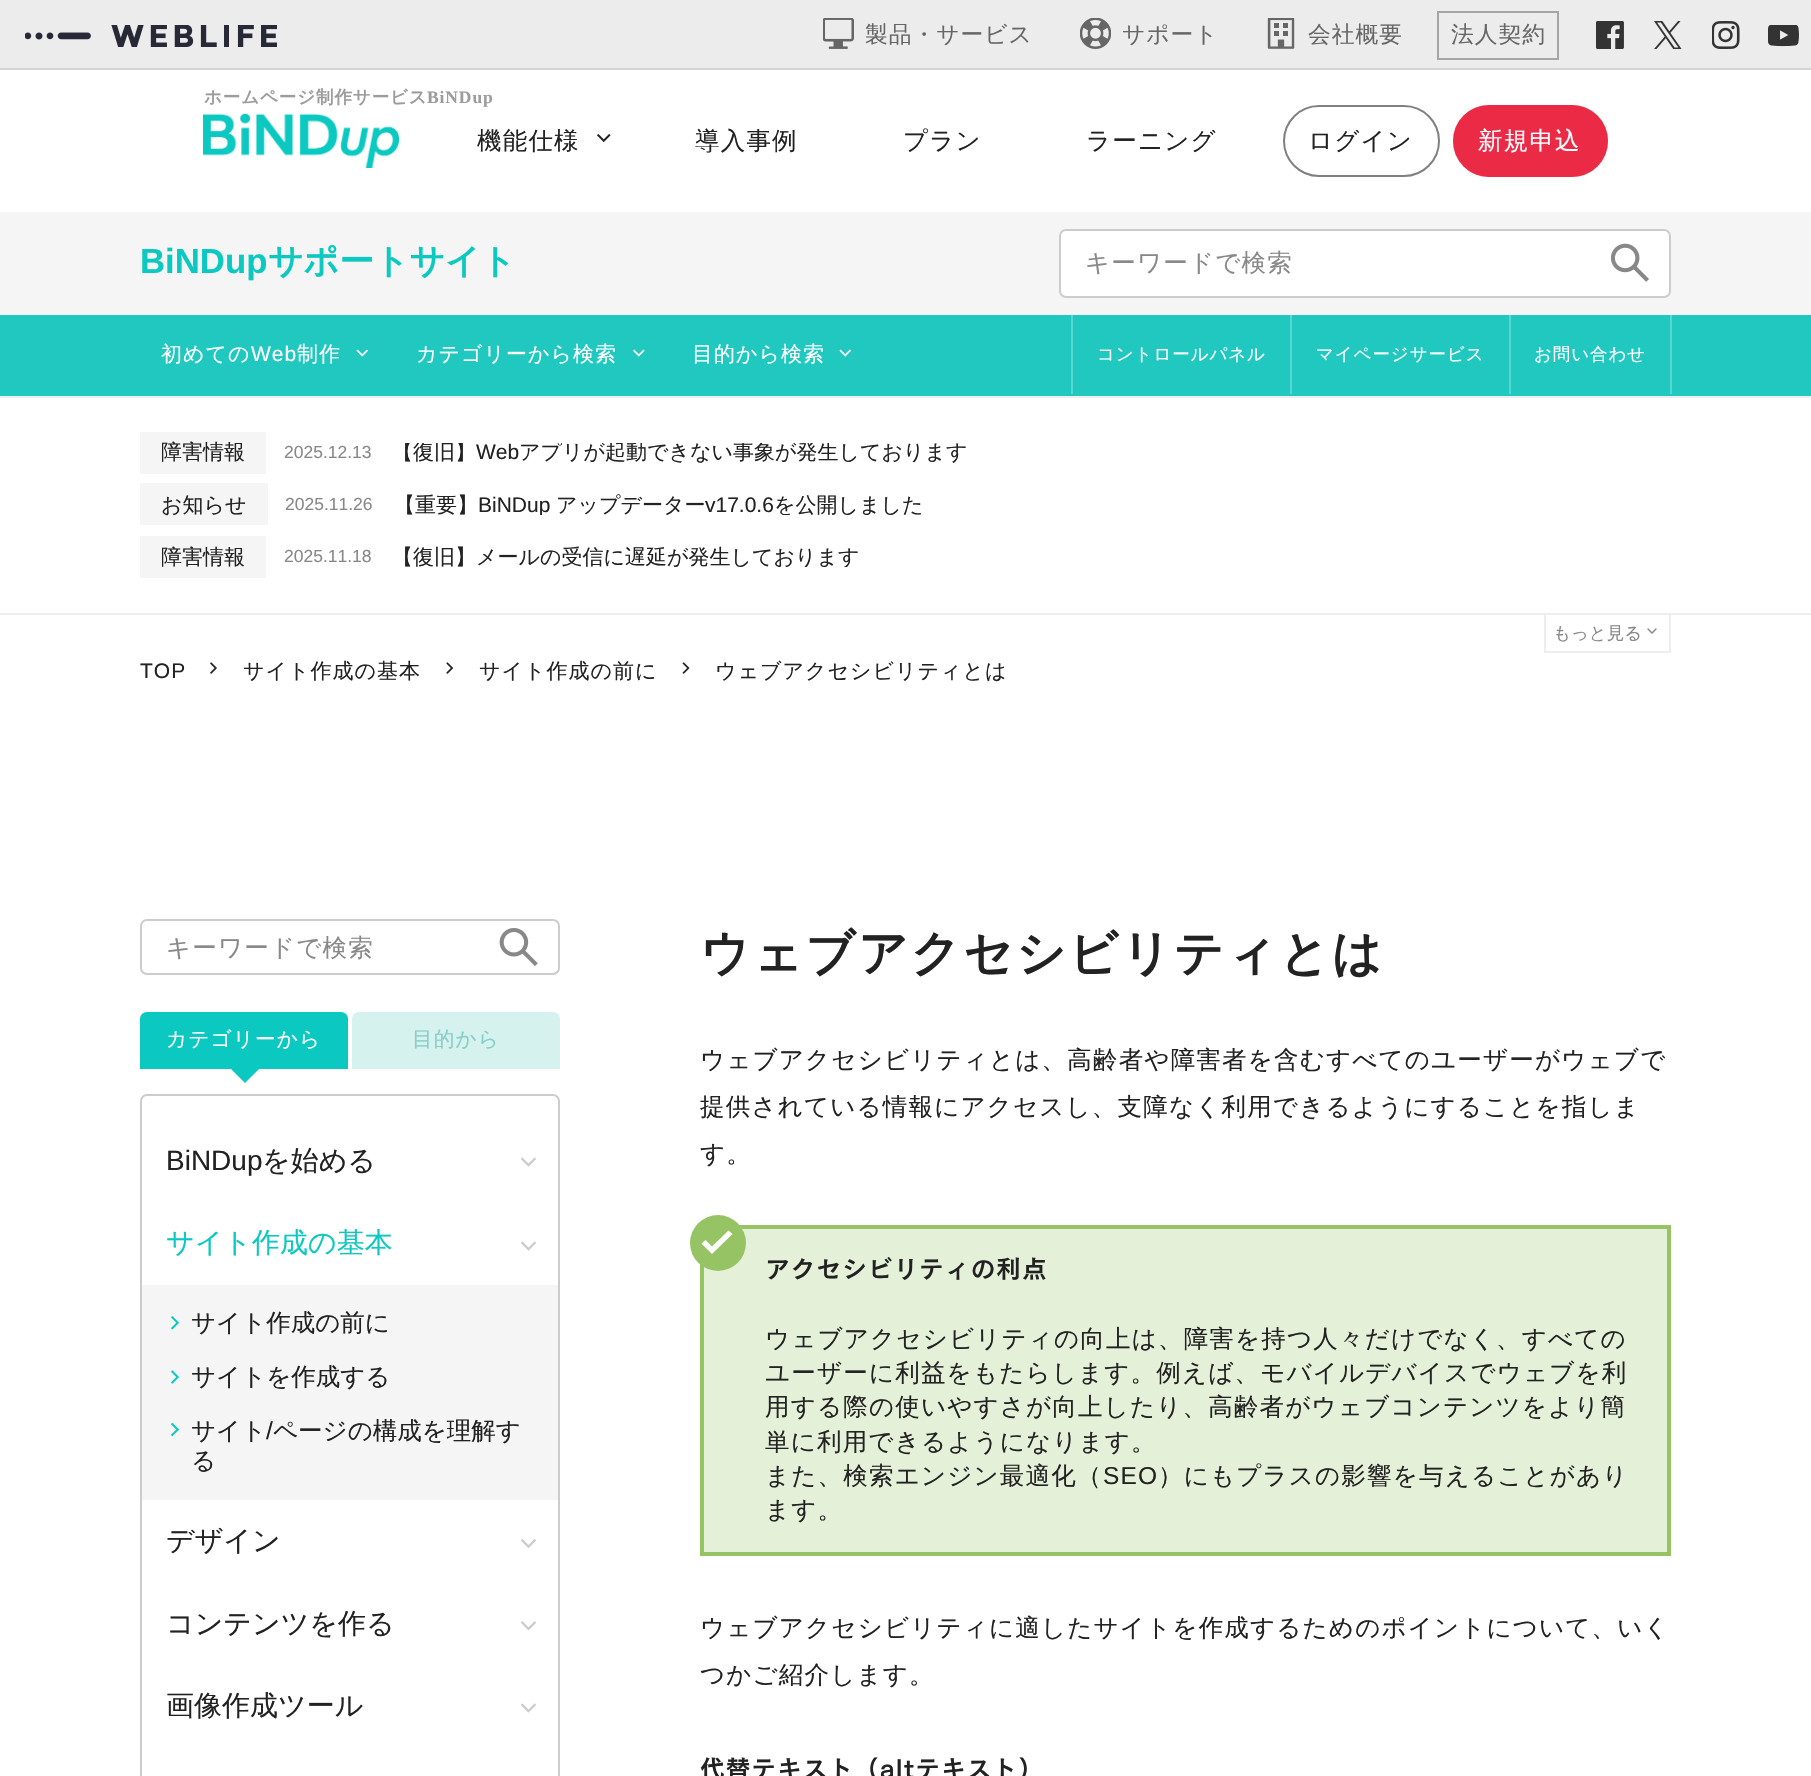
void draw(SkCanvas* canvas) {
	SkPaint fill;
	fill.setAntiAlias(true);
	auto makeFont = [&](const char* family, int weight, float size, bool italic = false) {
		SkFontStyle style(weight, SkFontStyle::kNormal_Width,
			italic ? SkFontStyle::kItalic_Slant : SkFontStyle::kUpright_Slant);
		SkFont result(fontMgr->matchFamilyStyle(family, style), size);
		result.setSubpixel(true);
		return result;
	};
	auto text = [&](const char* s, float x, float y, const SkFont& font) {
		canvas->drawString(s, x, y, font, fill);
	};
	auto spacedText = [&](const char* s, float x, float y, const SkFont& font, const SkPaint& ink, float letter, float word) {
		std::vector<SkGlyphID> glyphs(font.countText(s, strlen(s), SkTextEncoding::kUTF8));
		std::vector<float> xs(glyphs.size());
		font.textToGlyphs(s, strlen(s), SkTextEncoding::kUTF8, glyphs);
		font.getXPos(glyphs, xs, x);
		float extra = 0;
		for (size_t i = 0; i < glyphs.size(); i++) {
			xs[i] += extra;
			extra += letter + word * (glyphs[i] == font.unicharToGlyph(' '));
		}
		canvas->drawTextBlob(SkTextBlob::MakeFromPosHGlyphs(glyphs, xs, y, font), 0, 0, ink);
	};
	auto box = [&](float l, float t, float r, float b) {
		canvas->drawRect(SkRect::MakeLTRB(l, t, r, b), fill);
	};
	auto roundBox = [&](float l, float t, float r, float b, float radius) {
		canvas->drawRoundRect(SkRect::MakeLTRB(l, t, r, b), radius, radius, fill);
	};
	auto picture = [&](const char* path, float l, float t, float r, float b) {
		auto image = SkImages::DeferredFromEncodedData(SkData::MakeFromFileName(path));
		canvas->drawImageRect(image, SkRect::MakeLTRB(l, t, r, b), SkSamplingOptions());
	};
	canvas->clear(0xFFFFFFFF);
	fill.setColor(0xFFECECEC);
	box(0, 0, 1811, 68);
	fill.setColor(0xFFD4D4D4);
	box(0, 68, 1811, 70);
	picture("image0.png", 25, 25, 277, 47);
	picture("image1.png", 823, 18, 854, 49);
	picture("image2.png", 1080, 18, 1111, 49);
	picture("image3.png", 1267, 18, 1295, 49);
	fill.setStyle(SkPaint::kStroke_Style);
	fill.setStrokeWidth(2);
	fill.setColor(0xFFA5A5A5);
	canvas->drawRect(SkRect::MakeLTRB(1438, 12, 1558, 59), fill);
	picture("image4.png", 1596, 21, 1624, 49);
	picture("image5.png", 1654, 21, 1682, 49);
	picture("image6.png", 1712, 21, 1740, 49);
	picture("image7.png", 1768, 25, 1799, 47);
	picture("image8.png", 203, 113, 399, 168);
	picture("image9.png", 597, 134, 611, 143);
	fill.setColor(0xFF808080);
	canvas->drawRoundRect(SkRect::MakeLTRB(1284, 106, 1439, 176), 35, 35, fill);
	fill.setStyle(SkPaint::kFill_Style);
	fill.setColor(0xFFEB2A46);
	roundBox(1453, 105, 1608, 177, 36);
	fill.setStyle(SkPaint::kStroke_Style);
	fill.setColor(0x80EB2A46);
	canvas->drawRoundRect(SkRect::MakeLTRB(1454, 106, 1607, 176), 35, 35, fill);
	fill.setStyle(SkPaint::kFill_Style);
	fill.setColor(0xFF20C8C0);
	box(0, 315, 1811, 396);
	fill.setColor(0xFFF5F5F5);
	box(0, 212, 1811, 315);
	fill.setColor(0xFFFFFFFF);
	canvas->drawRoundRect(SkRect::MakeLTRB(1060, 230, 1670, 297), 6, 6, fill);
	fill.setStyle(SkPaint::kStroke_Style);
	fill.setColor(0xFFCCCCCC);
	canvas->drawRoundRect(SkRect::MakeLTRB(1060, 230, 1670, 297), 6, 6, fill);
	picture("image10.png", 1610, 243, 1649, 282);
	picture("image11.png", 356, 349, 368, 357);
	picture("image12.png", 633, 349, 645, 357);
	picture("image11.png", 839, 349, 851, 357);
	fill.setStyle(SkPaint::kFill_Style);
	fill.setColor(0xFF58D6D0);
	box(1290, 315, 1292, 394);
	box(1071, 315, 1073, 394);
	box(1509, 315, 1511, 394);
	box(1670, 315, 1672, 394);
	fill.setColor(0xFFEEEEEE);
	box(0, 396, 1811, 398);
	box(0, 613, 1811, 615);
	fill.setColor(0xFFF5F5F5);
	box(140, 432, 266, 474);
	box(140, 483, 268, 525);
	box(140, 536, 266, 578);
	fill.setStyle(SkPaint::kStroke_Style);
	fill.setColor(0xFFEEEEEE);
	canvas->drawRect(SkRect::MakeLTRB(1545, 614, 1670, 652), fill);
	picture("image13.png", 1647, 628, 1657, 634);
	picture("image14.png", 210, 662, 217, 674);
	picture("image15.png", 446, 662, 454, 674);
	picture("image16.png", 682, 662, 690, 674);
	fill.setColor(0xFFCCCCCC);
	canvas->drawRoundRect(SkRect::MakeLTRB(141, 920, 559, 974), 6, 6, fill);
	picture("image17.png", 499, 928, 538, 966);
	fill.setStyle(SkPaint::kFill_Style);
	fill.setColor(0xFF0BC8C0);
	canvas->drawPath(SkPathBuilder().moveTo(147, 1012).lineTo(341, 1012).cubicTo(345, 1012, 348, 1015, 348, 1019).lineTo(348, 1069).lineTo(140, 1069).lineTo(140, 1019).cubicTo(140, 1015, 143, 1012, 147, 1012).close().detach(), fill);
	canvas->drawPath(SkPathBuilder().moveTo(231, 1069).lineTo(259, 1069).lineTo(245, 1083).close().detach(), fill);
	fill.setColor(0xFFD6F2EE);
	canvas->drawPath(SkPathBuilder().moveTo(359, 1012).lineTo(553, 1012).cubicTo(557, 1012, 560, 1015, 560, 1019).lineTo(560, 1069).lineTo(352, 1069).lineTo(352, 1019).cubicTo(352, 1015, 355, 1012, 359, 1012).close().detach(), fill);
	fill.setStyle(SkPaint::kStroke_Style);
	fill.setColor(0xFFCCCCCC);
	canvas->drawRoundRect(SkRect::MakeLTRB(141, 1095, 559, 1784), 6, 6, fill);
	picture("image18.png", 521, 1157, 536, 1167);
	picture("image18.png", 521, 1241, 536, 1251);
	fill.setStyle(SkPaint::kFill_Style);
	fill.setColor(0xFFF5F5F5);
	box(142, 1285, 558, 1500);
	picture("image19.png", 171, 1316, 179, 1330);
	picture("image20.png", 171, 1370, 179, 1384);
	picture("image21.png", 171, 1422, 179, 1437);
	picture("image22.png", 520, 1539, 536, 1548);
	picture("image23.png", 520, 1621, 536, 1631);
	picture("image18.png", 521, 1703, 536, 1713);
	fill.setColor(0xFFE5F0D8);
	canvas->drawRect(SkRect::MakeLTRB(702, 1227, 1669, 1554), fill);
	fill.setStyle(SkPaint::kStroke_Style);
	fill.setStrokeWidth(4);
	fill.setColor(0xFF96C465);
	canvas->drawRect(SkRect::MakeLTRB(702, 1227, 1669, 1554), fill);
	fill.setStyle(SkPaint::kFill_Style);
	canvas->drawCircle(718, 1243, 28, fill);
	fill.setColor(0xFFFFFFFF);
	canvas->drawPath(SkPathBuilder().moveTo(728.5f, 1230.5f).lineTo(712, 1246.5f).lineTo(705.5f, 1240).lineTo(701.5f, 1243.5f).lineTo(712, 1254).lineTo(732.5f, 1234).close().detach(), fill);
	auto font1 = makeFont("WenQuanYi Zen Hei", 500, 22.75f);
	fill.setColor(0xFF666666);
	spacedText("製品・サービス", 865, 42, font1, fill, 1, 0);
	spacedText("サポート", 1122, 42, font1, fill, 1, 0);
	spacedText("会社概要", 1308, 42, font1, fill, 1, 0);
	spacedText("法人契約", 1451, 42, font1, fill, 1, 0);
	auto font2 = makeFont("WenQuanYi Zen Hei", 700, 17.5f);
	fill.setColor(0xFF9C9C9C);
	spacedText("ホームページ制作サービス", 204, 103, font2, fill, 0.9f, 0);
	auto font3 = makeFont("Liberation Serif", 700, 17.5f);
	spacedText("BiNDup", 427, 103, font3, fill, 0.9f, 0);
	auto font4 = makeFont("WenQuanYi Zen Hei", 500, 24.5f);
	fill.setColor(0xFF222222);
	spacedText("機能仕様", 477, 149, font4, fill, 1.2f, 0);
	spacedText("導入事例", 695, 149, font4, fill, 1.2f, 0);
	spacedText("プラン", 903, 149, font4, fill, 1.2f, 0);
	spacedText("ラーニング", 1086, 149, font4, fill, 1.2f, 0);
	spacedText("ログイン", 1308, 149, font4, fill, 1.2f, 0);
	fill.setColor(0xFFFFFFFF);
	spacedText("新規申込", 1478, 149, font4, fill, 1.2f, 0);
	auto font5 = makeFont("Liberation Sans", 700, 34.75f);
	fill.setColor(0xFF0BC8C0);
	text("BiNDup", 140, 273, font5);
	auto font6 = makeFont("WenQuanYi Zen Hei", 700, 34.75f);
	text("サポートサイト", 268, 273, font6);
	fill.setColor(0xFF888888);
	spacedText("キーワードで検索", 1085, 271, font4, fill, 1.2f, 0);
	auto font7 = makeFont("WenQuanYi Zen Hei", 500, 21);
	fill.setColor(0xFFFFFFFF);
	spacedText("初めての", 161, 361, font7, fill, 1, 0);
	auto font8 = makeFont("Liberation Sans", 400, 21);
	spacedText("Web", 251, 361, font8, fill, 1, 0);
	spacedText("制作", 297, 361, font7, fill, 1, 0);
	spacedText("カテゴリーから検索", 416, 361, font7, fill, 1, 0);
	spacedText("目的から検索", 692, 361, font7, fill, 1, 0);
	auto font9 = makeFont("WenQuanYi Zen Hei", 500, 17.5f);
	spacedText("コントロールパネル", 1097, 360, font9, fill, 0.9f, 0);
	spacedText("マイページサービス", 1316, 360, font9, fill, 0.9f, 0);
	spacedText("お問い合わせ", 1534, 360, font9, fill, 0.9f, 0);
	fill.setColor(0xFF222222);
	text("障害情報", 161, 459, font7);
	auto font10 = makeFont("Liberation Sans", 400, 17.5f);
	fill.setColor(0xFF888888);
	text("2025.12.13", 284, 458, font10);
	canvas->save();
	canvas->clipRect(SkRect::MakeLTRB(392, 443, 1671, 464));
	fill.setColor(0xFF222222);
	text("【復旧】", 392, 459, font7);
	canvas->restore();
	text("Web", 476, 459, font8);
	canvas->save();
	canvas->clipRect(SkRect::MakeLTRB(392, 443, 1671, 464));
	text("アプリが起動できない事象が発生しております", 519, 459, font7);
	canvas->restore();
	text("お知らせ", 161, 512, font7);
	fill.setColor(0xFF888888);
	text("2025.11.26", 285, 510, font10);
	fill.setColor(0xFF222222);
	text("【重要】", 394, 512, font7);
	canvas->save();
	canvas->clipRect(SkRect::MakeLTRB(394, 494, 1671, 515));
	text("BiNDup", 478, 512, font8);
	canvas->restore();
	text("アップデーター", 556, 512, font7);
	text("v17.0.6", 705, 512, font8);
	canvas->save();
	canvas->clipRect(SkRect::MakeLTRB(394, 494, 1671, 515));
	text("を公開しました", 774, 512, font7);
	canvas->restore();
	text("障害情報", 161, 564, font7);
	fill.setColor(0xFF888888);
	text("2025.11.18", 284, 562, font10);
	canvas->save();
	canvas->clipRect(SkRect::MakeLTRB(392, 546, 1671, 567));
	fill.setColor(0xFF222222);
	text("【復旧】メールの受信に遅延が発生しております", 392, 564, font7);
	canvas->restore();
	fill.setColor(0xFF888888);
	text("もっと見る", 1553, 639, font9);
	fill.setColor(0xFF222222);
	spacedText("TOP", 140, 678, font8, fill, 1, 0);
	spacedText("サイト作成の基本", 243, 678, font7, fill, 1, 0);
	spacedText("サイト作成の前に", 479, 678, font7, fill, 1, 0);
	spacedText("ウェブアクセシビリティとは", 715, 678, font7, fill, 1, 0);
	fill.setColor(0xFF888888);
	spacedText("キーワードで検索", 166, 956, font4, fill, 1.2f, 0);
	auto font11 = makeFont("WenQuanYi Zen Hei", 500, 20.75f);
	fill.setColor(0xFFFFFFFF);
	spacedText("カテゴリーから", 166, 1046, font11, fill, 1, 0);
	fill.setColor(0xFF86CEC8);
	spacedText("目的から", 412, 1046, font11, fill, 1, 0);
	auto font12 = makeFont("Liberation Sans", 400, 28);
	fill.setColor(0xFF222222);
	text("BiNDup", 166, 1170, font12);
	auto font13 = makeFont("WenQuanYi Zen Hei", 500, 28);
	text("を始める", 262, 1170, font13);
	fill.setColor(0xFF0BC8C0);
	text("サイト作成の基本", 166, 1252, font13);
	fill.setColor(0xFF222222);
	text("サイト作成の前に", 191, 1331, font4);
	text("サイトを作成する", 191, 1385, font4);
	text("サイト", 191, 1439, font4);
	auto font14 = makeFont("Liberation Sans", 400, 24.5f);
	text("/", 266, 1439, font14);
	text("ページの構成を理解す", 273, 1439, font4);
	text("る", 191, 1469, font4);
	text("デザイン", 166, 1550, font13);
	text("コンテンツを作る", 166, 1633, font13);
	text("画像作成ツール", 166, 1715, font13);
	auto font15 = makeFont("WenQuanYi Zen Hei", 700, 49);
	spacedText("ウェブアクセシビリティとは", 700, 970, font15, fill, 2.5f, 0);
	spacedText("ウェブアクセシビリティとは、高齢者や障害者を含むすべてのユーザーがウェブで", 700, 1068, font4, fill, 1.2f, 0);
	spacedText("提供されている情報にアクセスし、支障なく利用できるようにすることを指しま", 700, 1115, font4, fill, 1.2f, 0);
	spacedText("す。", 700, 1162, font4, fill, 1.2f, 0);
	auto font16 = makeFont("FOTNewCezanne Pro", 600, 24.5f);
	spacedText("アクセシビリティの利点", 765, 1278, font16, fill, 1.2f, 0);
	spacedText("ウェブアクセシビリティの向上は、障害を持つ人々だけでなく、すべての", 765, 1347, font4, fill, 1.2f, 0);
	spacedText("ユーザーに利益をもたらします。例えば、モバイルデバイスでウェブを利", 765, 1381, font4, fill, 1.2f, 0);
	spacedText("用する際の使いやすさが向上したり、高齢者がウェブコンテンツをより簡", 765, 1415, font4, fill, 1.2f, 0);
	spacedText("単に利用できるようになります。", 765, 1450, font4, fill, 1.2f, 0);
	spacedText("また、検索エンジン最適化（", 765, 1484, font4, fill, 1.2f, 0);
	spacedText("SEO", 1103, 1484, font14, fill, 1.2f, 0);
	spacedText("）にもプラスの影響を与えることがあり", 1158, 1484, font4, fill, 1.2f, 0);
	spacedText("ます。", 765, 1518, font4, fill, 1.2f, 0);
	spacedText("ウェブアクセシビリティに適したサイトを作成するためのポイントについて、いく", 700, 1636, font4, fill, 1.2f, 0);
	spacedText("つかご紹介します。", 700, 1683, font4, fill, 1.2f, 0);
	spacedText("代替テキスト（altテキスト）", 700, 1778, font16, fill, 1.2f, 0);
}
